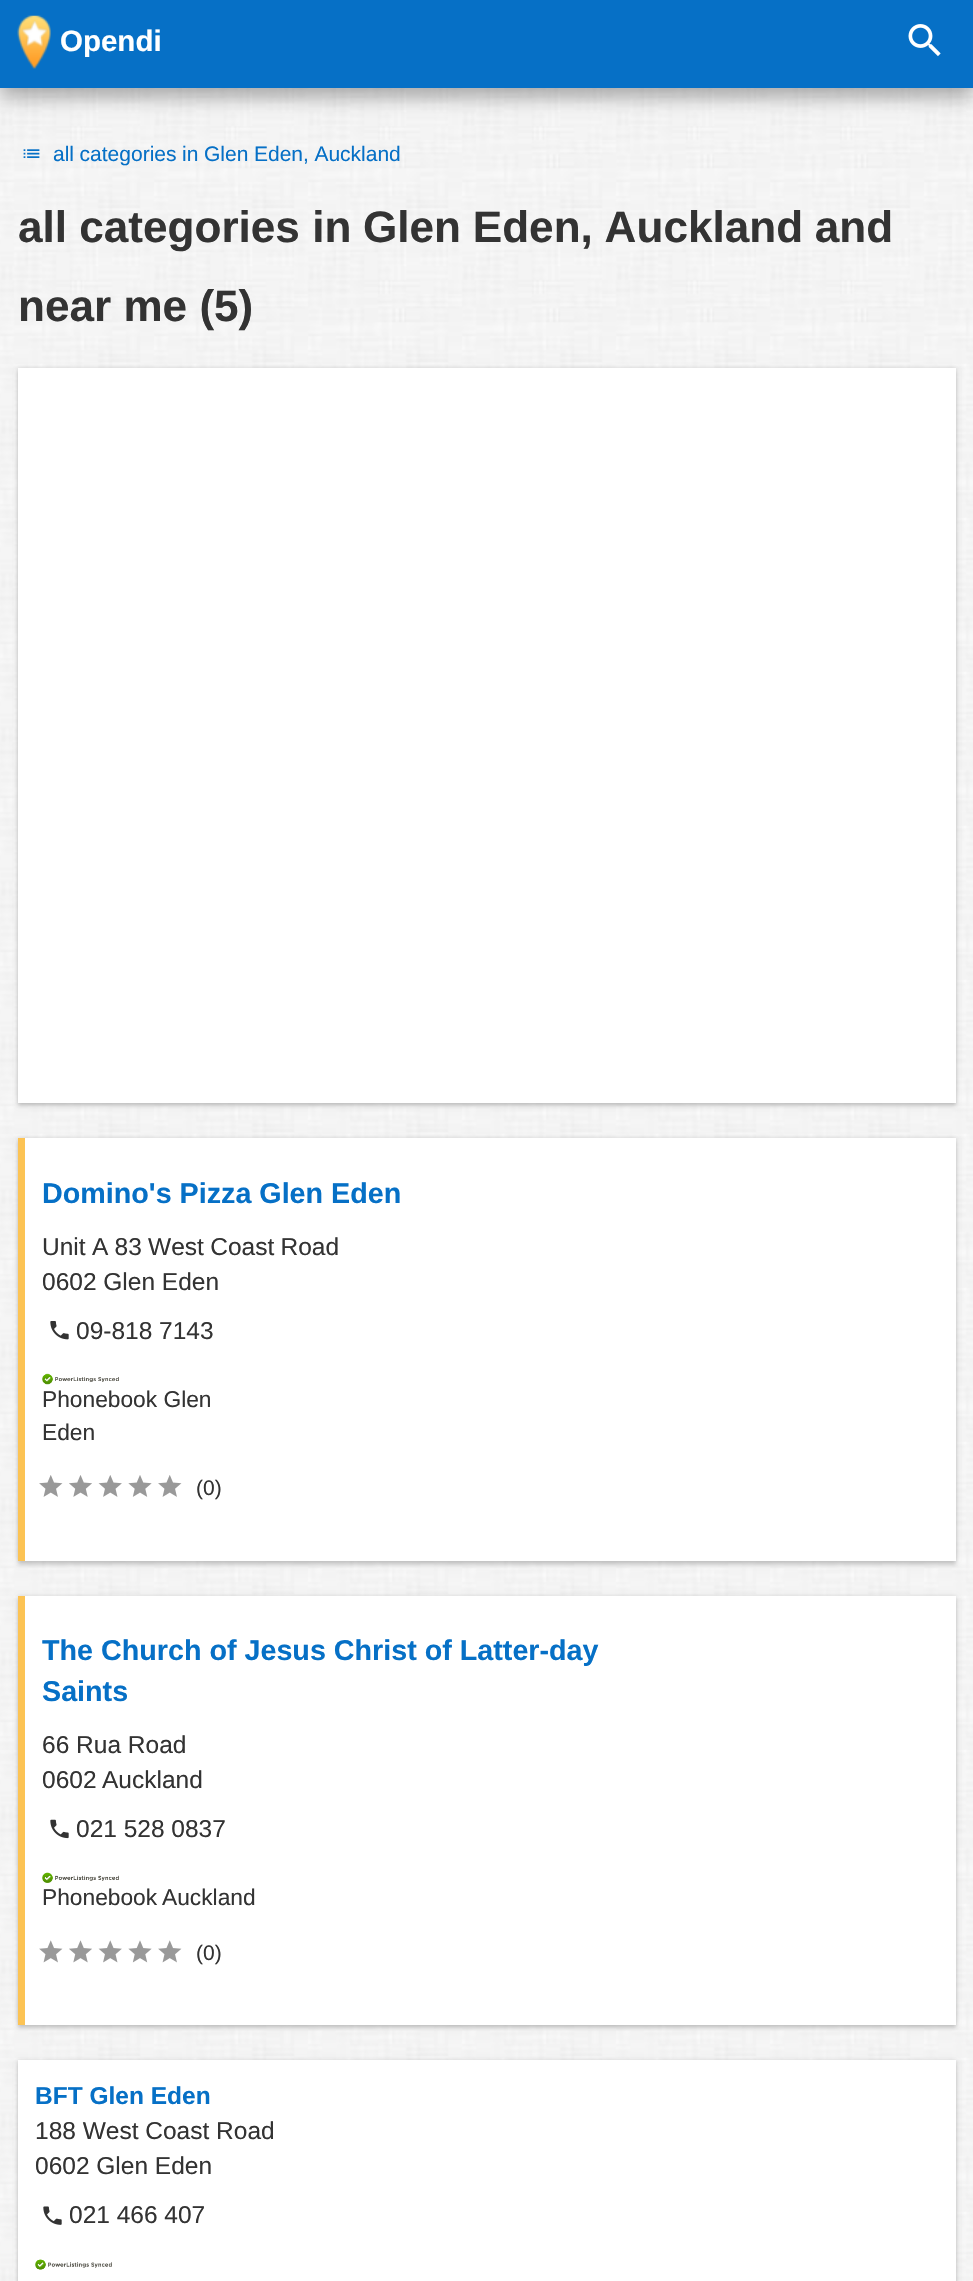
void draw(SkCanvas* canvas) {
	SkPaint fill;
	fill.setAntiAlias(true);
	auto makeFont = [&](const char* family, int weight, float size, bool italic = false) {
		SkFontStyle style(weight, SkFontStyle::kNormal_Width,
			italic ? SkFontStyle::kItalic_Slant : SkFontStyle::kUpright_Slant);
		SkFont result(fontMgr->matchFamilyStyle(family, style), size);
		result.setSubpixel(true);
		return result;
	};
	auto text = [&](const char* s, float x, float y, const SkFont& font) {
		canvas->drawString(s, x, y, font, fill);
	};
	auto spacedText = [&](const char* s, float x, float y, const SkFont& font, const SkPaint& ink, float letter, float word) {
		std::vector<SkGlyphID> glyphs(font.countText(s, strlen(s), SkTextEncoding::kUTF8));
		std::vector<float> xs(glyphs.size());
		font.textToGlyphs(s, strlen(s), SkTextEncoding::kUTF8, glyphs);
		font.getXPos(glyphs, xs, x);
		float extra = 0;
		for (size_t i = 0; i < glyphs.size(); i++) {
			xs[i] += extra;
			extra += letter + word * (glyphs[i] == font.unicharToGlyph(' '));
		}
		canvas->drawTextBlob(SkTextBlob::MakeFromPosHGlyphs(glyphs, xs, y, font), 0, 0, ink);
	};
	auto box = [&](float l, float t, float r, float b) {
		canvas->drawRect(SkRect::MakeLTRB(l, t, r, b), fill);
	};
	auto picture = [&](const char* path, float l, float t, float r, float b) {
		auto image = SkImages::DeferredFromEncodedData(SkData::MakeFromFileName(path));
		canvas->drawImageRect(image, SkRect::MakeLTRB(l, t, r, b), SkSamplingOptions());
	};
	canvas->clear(0xFFFFFFFF);
	picture("image0.png", 0, 88, 973, 2281);
	fill.setColor(0x4D000000);
	fill.setMaskFilter(SkMaskFilter::MakeBlur(kNormal_SkBlurStyle, 9));
	canvas->drawRect(SkRect::MakeLTRB(0, 11, 973, 98), fill);
	fill.setMaskFilter(nullptr);
	fill.setColor(0xFF0670C6);
	box(0, 0, 973, 88);
	picture("image1.png", 17, 15, 51, 69);
	picture("image2.png", 908, 24, 941, 57);
	picture("image3.png", 23, 149, 40, 158);
	fill.setColor(0x1F000000);
	fill.setMaskFilter(SkMaskFilter::MakeBlur(kNormal_SkBlurStyle, 2));
	canvas->drawRect(SkRect::MakeLTRB(18, 368, 956, 1103), fill);
	fill.setMaskFilter(nullptr);
	fill.setColor(0x29000000);
	fill.setMaskFilter(SkMaskFilter::MakeBlur(kNormal_SkBlurStyle, 2));
	canvas->drawRect(SkRect::MakeLTRB(18, 371, 956, 1106), fill);
	fill.setMaskFilter(nullptr);
	fill.setColor(0xFFFFFFFF);
	box(18, 368, 956, 1103);
	fill.setColor(0x1F000000);
	fill.setMaskFilter(SkMaskFilter::MakeBlur(kNormal_SkBlurStyle, 2));
	canvas->drawRect(SkRect::MakeLTRB(18, 1138, 956, 1561), fill);
	fill.setMaskFilter(nullptr);
	fill.setColor(0x29000000);
	fill.setMaskFilter(SkMaskFilter::MakeBlur(kNormal_SkBlurStyle, 2));
	canvas->drawRect(SkRect::MakeLTRB(18, 1141, 956, 1565), fill);
	fill.setMaskFilter(nullptr);
	fill.setColor(0xFFFFFFFF);
	box(25, 1138, 956, 1561);
	fill.setColor(0xFFFCC354);
	box(18, 1138, 25, 1561);
	picture("image4.png", 50, 1321, 69, 1340);
	picture("image5.png", 42, 1373, 119, 1385);
	picture("image6.png", 39, 1475, 63, 1497);
	picture("image7.png", 69, 1475, 92, 1497);
	picture("image8.png", 98, 1475, 122, 1497);
	picture("image9.png", 128, 1475, 152, 1497);
	picture("image6.png", 158, 1475, 182, 1497);
	fill.setColor(0x1F000000);
	fill.setMaskFilter(SkMaskFilter::MakeBlur(kNormal_SkBlurStyle, 2));
	canvas->drawRect(SkRect::MakeLTRB(18, 1596, 956, 2025), fill);
	fill.setMaskFilter(nullptr);
	fill.setColor(0x29000000);
	fill.setMaskFilter(SkMaskFilter::MakeBlur(kNormal_SkBlurStyle, 2));
	canvas->drawRect(SkRect::MakeLTRB(18, 1600, 956, 2028), fill);
	fill.setMaskFilter(nullptr);
	fill.setColor(0xFFFFFFFF);
	box(25, 1596, 956, 2025);
	fill.setColor(0xFFFCC354);
	box(18, 1596, 25, 2025);
	picture("image10.png", 50, 1819, 69, 1839);
	picture("image11.png", 42, 1872, 119, 1883);
	picture("image12.png", 39, 1940, 63, 1963);
	picture("image13.png", 69, 1940, 92, 1963);
	picture("image14.png", 98, 1940, 122, 1963);
	picture("image15.png", 128, 1940, 152, 1963);
	picture("image12.png", 158, 1940, 182, 1963);
	fill.setColor(0x1F000000);
	fill.setMaskFilter(SkMaskFilter::MakeBlur(kNormal_SkBlurStyle, 2));
	canvas->drawRect(SkRect::MakeLTRB(18, 2060, 956, 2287), fill);
	fill.setMaskFilter(nullptr);
	fill.setColor(0x29000000);
	fill.setMaskFilter(SkMaskFilter::MakeBlur(kNormal_SkBlurStyle, 2));
	canvas->drawRect(SkRect::MakeLTRB(18, 2063, 956, 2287), fill);
	fill.setMaskFilter(nullptr);
	fill.setColor(0xFFFFFFFF);
	box(18, 2060, 956, 2281);
	picture("image16.png", 43, 2206, 62, 2225);
	picture("image17.png", 35, 2259, 112, 2270);
	auto font1 = makeFont("Liberation Sans", 700, 29.5f);
	text("Opendi", 60, 51, font1);
	auto font2 = makeFont("Liberation Sans", 400, 21);
	fill.setColor(0xFF0670C6);
	spacedText("all categories in Glen Eden, Auckland", 53, 161, font2, fill, 0, -0.25f);
	auto font3 = makeFont("Liberation Sans", 700, 44.1f);
	fill.setColor(0xFF333333);
	text("all categories in", 18, 242, font3);
	spacedText("Glen Eden, Auckland and", 363, 242, font3, fill, 0, -0.5f);
	text("near me (5)", 18, 321, font3);
	auto font4 = makeFont("Liberation Sans", 700, 28.7f);
	fill.setColor(0xFF0670C6);
	text("Domino's Pizza Glen Eden", 42, 1203, font4);
	auto font5 = makeFont("Liberation Sans", 400, 24.5f);
	fill.setColor(0xFF333333);
	spacedText("Unit A 83 West Coast Road", 42, 1255, font5, fill, 0, -0.5f);
	text("0602 Glen Eden", 42, 1290, font5);
	text("09-818 7143", 76, 1339, font5);
	auto font6 = makeFont("Liberation Sans", 400, 22.75f);
	text("Phonebook Glen", 42, 1407, font6);
	text("Eden", 42, 1440, font6);
	text("(0)", 196, 1495, font2);
	fill.setColor(0xFF0670C6);
	text("The Church of Jesus Christ of Latter-day", 42, 1660, font4);
	text("Saints", 42, 1701, font4);
	fill.setColor(0xFF333333);
	text("66 Rua Road", 42, 1753, font5);
	text("0602", 42, 1788, font5);
	text("Auckland", 102, 1788, font5);
	text("021 528 0837", 76, 1837, font5);
	text("Phonebook", 42, 1905, font6);
	text("Auckland", 162, 1905, font6);
	text("(0)", 196, 1960, font2);
	auto font7 = makeFont("Liberation Sans", 700, 24.5f);
	fill.setColor(0xFF0670C6);
	text("BFT Glen Eden", 35, 2104, font7);
	fill.setColor(0xFF333333);
	text("188 West Coast Road", 35, 2139, font5);
	text("0602 Glen Eden", 35, 2174, font5);
	text("021 466 407", 69, 2223, font5);
}
